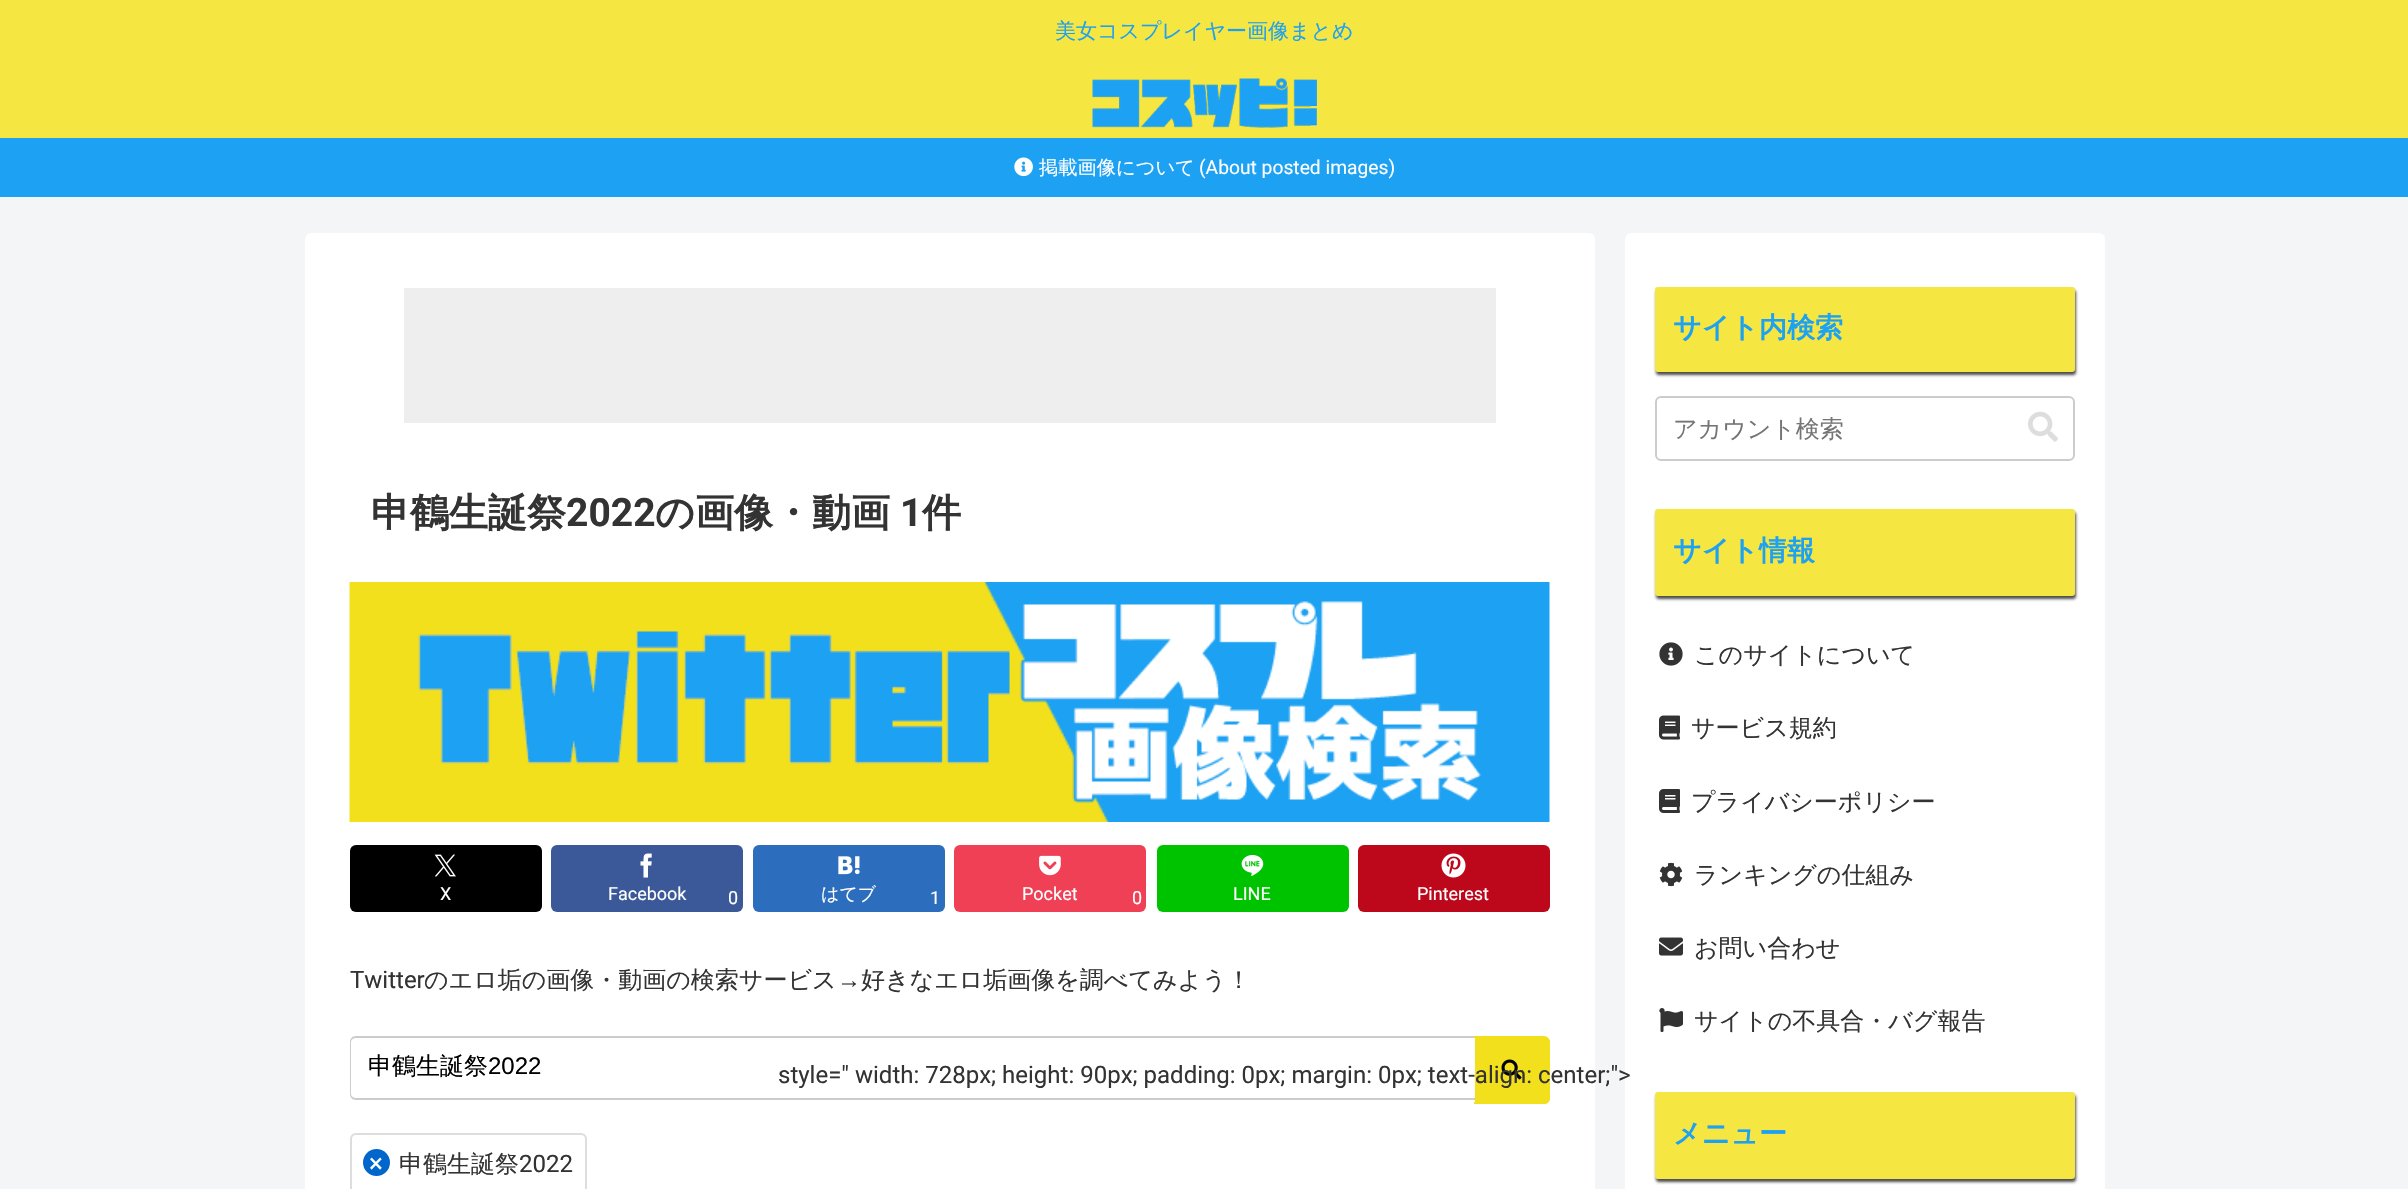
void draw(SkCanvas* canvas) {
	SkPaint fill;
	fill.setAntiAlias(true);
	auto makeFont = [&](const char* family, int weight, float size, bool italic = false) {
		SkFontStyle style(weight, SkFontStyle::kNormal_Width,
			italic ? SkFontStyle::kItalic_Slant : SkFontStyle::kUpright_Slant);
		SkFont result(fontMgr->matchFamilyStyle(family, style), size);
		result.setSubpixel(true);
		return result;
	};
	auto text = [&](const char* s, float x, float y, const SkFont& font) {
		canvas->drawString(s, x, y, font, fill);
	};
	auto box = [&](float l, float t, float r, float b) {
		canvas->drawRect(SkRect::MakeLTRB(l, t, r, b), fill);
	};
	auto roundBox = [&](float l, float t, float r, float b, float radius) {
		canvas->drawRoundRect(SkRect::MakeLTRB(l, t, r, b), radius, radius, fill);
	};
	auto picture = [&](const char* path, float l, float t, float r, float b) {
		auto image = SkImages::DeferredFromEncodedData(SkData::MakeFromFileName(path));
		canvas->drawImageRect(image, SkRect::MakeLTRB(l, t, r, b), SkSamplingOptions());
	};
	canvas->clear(0xFFF4F5F7);
	fill.setColor(0xFFF5E642);
	box(0, 0, 2408, 138);
	picture("image0.png", 1092, 78, 1317, 128);
	fill.setColor(0xFF1DA1F2);
	box(0, 138, 2408, 197);
	picture("image1.png", 1014, 157, 1033, 177);
	fill.setColor(0xFFFFFFFF);
	roundBox(305, 233, 1595, 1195, 6);
	fill.setColor(0xFFEEEEEE);
	box(404, 288, 1496, 423);
	picture("image2.png", 349, 582, 1550, 822);
	fill.setColor(0xFF000000);
	roundBox(350, 845, 542, 912, 6);
	picture("image3.png", 434, 854, 456, 877);
	fill.setColor(0xFF3B5998);
	roundBox(551, 845, 743, 912, 6);
	picture("image4.png", 640, 853, 652, 878);
	fill.setColor(0xFF2C6EBD);
	roundBox(753, 845, 945, 912, 6);
	picture("image5.png", 838, 856, 860, 875);
	fill.setColor(0xFFEF4056);
	roundBox(954, 845, 1146, 912, 6);
	picture("image6.png", 1039, 855, 1061, 876);
	fill.setColor(0xFF00C300);
	roundBox(1157, 845, 1349, 912, 6);
	picture("image7.png", 1241, 854, 1264, 876);
	fill.setColor(0xFFBD081C);
	roundBox(1358, 845, 1550, 912, 6);
	picture("image8.png", 1441, 853, 1466, 878);
	fill.setColor(0xFFCCCCCC);
	canvas->drawPath(SkPathBuilder(SkPathFillType::kEvenOdd).moveTo(356, 1036).lineTo(1476, 1036).lineTo(1476, 1100).lineTo(356, 1100).cubicTo(352, 1100, 350, 1097, 350, 1094).lineTo(350, 1042).cubicTo(350, 1039, 352, 1036, 356, 1036).close().moveTo(356, 1038).lineTo(1476, 1038).lineTo(1476, 1098).lineTo(356, 1098).cubicTo(353, 1098, 351, 1096, 351, 1094).lineTo(351, 1042).cubicTo(351, 1040, 353, 1038, 356, 1038).close().detach(), fill);
	fill.setColor(0xFFF2E01D);
	canvas->drawPath(SkPathBuilder().moveTo(1475, 1037).lineTo(1544, 1037).cubicTo(1547.5f, 1037, 1550, 1039.5f, 1550, 1043).lineTo(1550, 1098).cubicTo(1550, 1101.5f, 1547.5f, 1104, 1544, 1104).lineTo(1475, 1104).close().detach(), fill);
	canvas->drawPath(SkPathBuilder(SkPathFillType::kEvenOdd).moveTo(1474, 1036).lineTo(1544, 1036).cubicTo(1547, 1036, 1550, 1039, 1550, 1042).lineTo(1550, 1098).cubicTo(1550, 1101, 1547, 1104, 1544, 1104).lineTo(1474, 1104).close().moveTo(1474, 1038).lineTo(1544, 1038).cubicTo(1546, 1038, 1548, 1040, 1548, 1042).lineTo(1548, 1098).cubicTo(1548, 1100, 1546, 1102, 1544, 1102).lineTo(1474, 1102).close().detach(), fill);
	picture("image9.png", 1501, 1059, 1522, 1080);
	fill.setStyle(SkPaint::kStroke_Style);
	fill.setStrokeWidth(2);
	fill.setColor(0xFFDDDDDD);
	canvas->drawRoundRect(SkRect::MakeLTRB(351, 1134, 586, 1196), 5, 5, fill);
	fill.setStyle(SkPaint::kFill_Style);
	fill.setColor(0xFF0066CC);
	canvas->drawCircle(376.5f, 1162.5f, 13.5f, fill);
	fill.setColor(0xFFFFFFFF);
	roundBox(1625, 233, 2105, 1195, 6);
	fill.setColor(0xB3000000);
	fill.setMaskFilter(SkMaskFilter::MakeBlur(kNormal_SkBlurStyle, 1.5f));
	canvas->drawRoundRect(SkRect::MakeLTRB(1656, 290, 2076, 375), 3, 3, fill);
	fill.setMaskFilter(nullptr);
	fill.setColor(0xFFF5E642);
	roundBox(1655, 287, 2075, 372, 3);
	fill.setStyle(SkPaint::kStroke_Style);
	fill.setColor(0xFFCCCCCC);
	canvas->drawRoundRect(SkRect::MakeLTRB(1656, 397, 2074, 460), 5, 5, fill);
	picture("image10.png", 2028, 411, 2058, 442);
	fill.setStyle(SkPaint::kFill_Style);
	fill.setColor(0xB3000000);
	fill.setMaskFilter(SkMaskFilter::MakeBlur(kNormal_SkBlurStyle, 1.5f));
	canvas->drawRoundRect(SkRect::MakeLTRB(1656, 512, 2076, 599), 3, 3, fill);
	fill.setMaskFilter(nullptr);
	fill.setColor(0xFFF5E642);
	roundBox(1655, 509, 2075, 596, 3);
	picture("image11.png", 1659, 642, 1683, 666);
	picture("image12.png", 1659, 715, 1680, 740);
	picture("image13.png", 1659, 789, 1680, 813);
	picture("image14.png", 1659, 862, 1683, 887);
	picture("image15.png", 1659, 937, 1683, 956);
	picture("image16.png", 1659, 1008, 1683, 1032);
	fill.setColor(0xB3000000);
	fill.setMaskFilter(SkMaskFilter::MakeBlur(kNormal_SkBlurStyle, 1.5f));
	canvas->drawRoundRect(SkRect::MakeLTRB(1656, 1095, 2076, 1182), 3, 3, fill);
	fill.setMaskFilter(nullptr);
	fill.setColor(0xFFF5E642);
	roundBox(1655, 1092, 2075, 1179, 3);
	auto font1 = makeFont("WenQuanYi Zen Hei", 500, 21);
	fill.setColor(0xFF1DA1F2);
	text("美女コスプレイヤー画像まとめ", 1055, 38, font1);
	auto font2 = makeFont("WenQuanYi Zen Hei", 500, 19.25f);
	fill.setColor(0xFFFFFFFF);
	text("掲載画像について", 1039, 174, font2);
	auto font3 = makeFont("Roboto", 400, 19.25f);
	text("(About posted images)", 1199, 174, font3);
	auto font4 = makeFont("WenQuanYi Zen Hei", 700, 39);
	fill.setColor(0xFF333333);
	text("申鶴生誕祭", 371, 526, font4);
	auto font5 = makeFont("Roboto", 700, 39);
	text("2022", 566, 526, font5);
	text("の画像・動画", 655, 526, font4);
	text("1", 900, 526, font5);
	text("件", 922, 526, font4);
	auto font6 = makeFont("Roboto", 400, 18);
	fill.setColor(0xFFFFFFFF);
	text("X", 440, 900, font6);
	text("Facebook", 608, 900, font6);
	text("0", 728, 904, font6);
	auto font7 = makeFont("WenQuanYi Zen Hei", 500, 18);
	text("はてブ", 821, 900, font7);
	text("1", 930, 904, font6);
	text("Pocket", 1022, 900, font6);
	text("0", 1132, 904, font6);
	text("LINE", 1233, 900, font6);
	text("Pinterest", 1417, 900, font6);
	auto font8 = makeFont("Roboto", 400, 24);
	fill.setColor(0xFF333333);
	text("Twitter", 350, 988, font8);
	auto font9 = makeFont("WenQuanYi Zen Hei", 500, 24);
	text("のエロ垢の画像・動画の検索サービス", 424, 988, font9);
	auto font10 = makeFont("Liberation Sans", 400, 24);
	text("→", 837, 988, font10);
	text("好きなエロ垢画像を調べてみよう！", 861, 988, font9);
	fill.setColor(0xFF000000);
	text("申鶴生誕祭", 368, 1074, font9);
	text("2022", 488, 1074, font10);
	auto font11 = makeFont("Roboto", 400, 26);
	fill.setColor(0xFFFFFFFF);
	text("×", 369, 1172, font11);
	fill.setColor(0xFF333333);
	text("申鶴生誕祭", 399, 1172, font9);
	text("2022", 519, 1172, font8);
	auto font12 = makeFont("WenQuanYi Zen Hei", 700, 28);
	fill.setColor(0xFF1DA1F2);
	text("サイト内検索", 1673, 337, font12);
	fill.setColor(0xFF757575);
	text("アカウント検索", 1673, 437, font9);
	fill.setColor(0xFF1DA1F2);
	text("サイト情報", 1673, 560, font12);
	fill.setColor(0xFF333333);
	text("このサイトについて", 1694, 663, font9);
	text("サービス規約", 1691, 736, font9);
	text("プライバシーポリシー", 1691, 810, font9);
	text("ランキングの仕組み", 1694, 883, font9);
	text("お問い合わせ", 1694, 956, font9);
	text("サイトの不具合・バグ報告", 1694, 1029, font9);
	fill.setColor(0xFF1DA1F2);
	text("メニュー", 1673, 1143, font12);
	fill.setColor(0xFF333333);
	text("style=\" width: 728px; height: 90px; padding: 0px; margin: 0px; text-align: center;\">", 778, 1083, font8);
}
